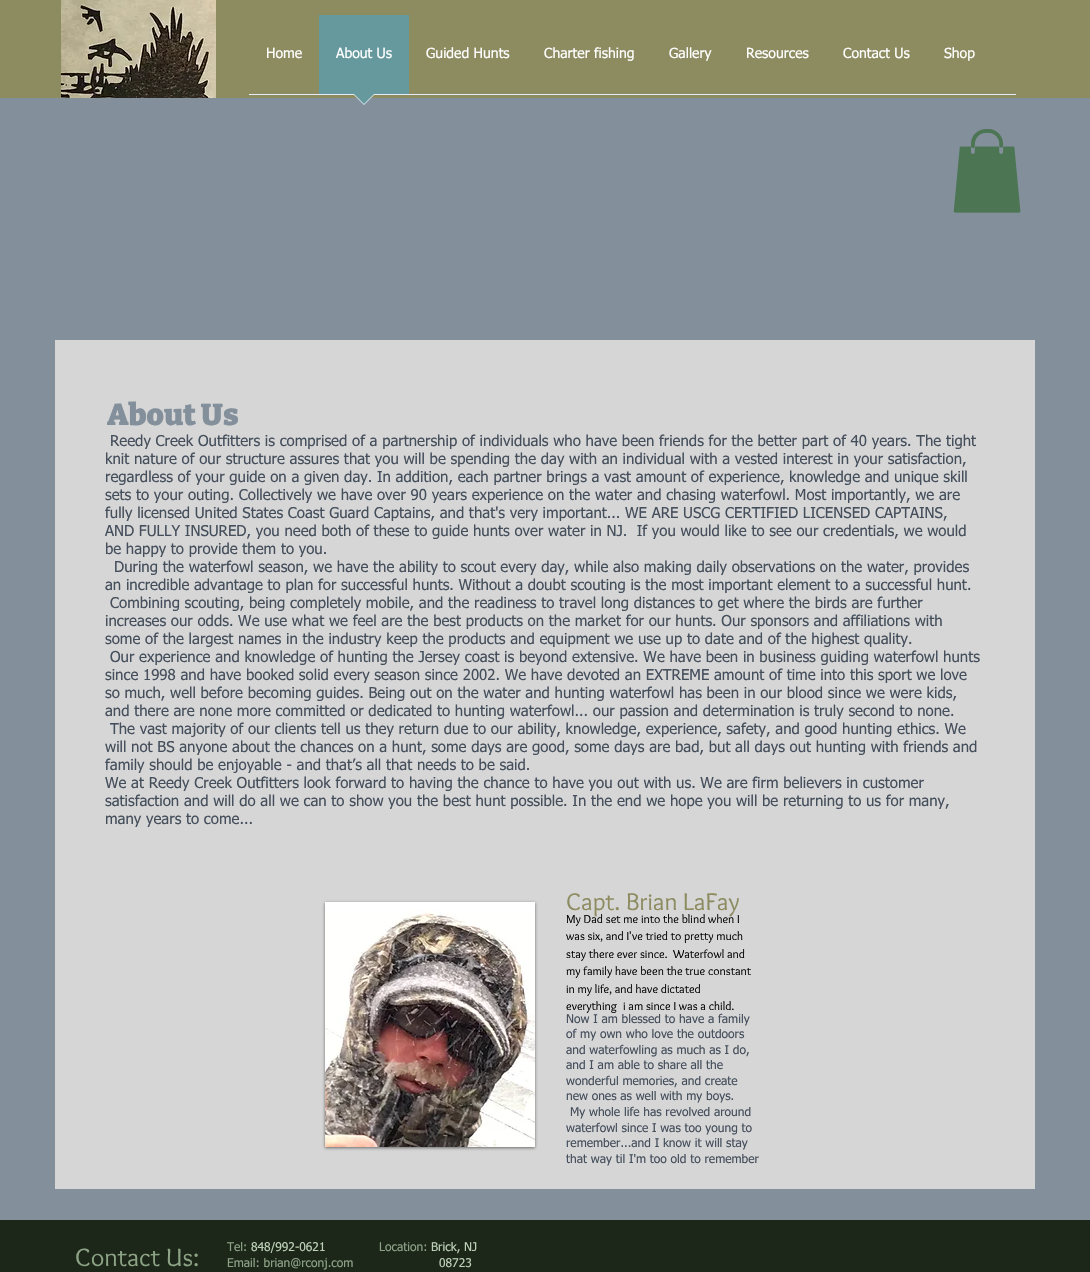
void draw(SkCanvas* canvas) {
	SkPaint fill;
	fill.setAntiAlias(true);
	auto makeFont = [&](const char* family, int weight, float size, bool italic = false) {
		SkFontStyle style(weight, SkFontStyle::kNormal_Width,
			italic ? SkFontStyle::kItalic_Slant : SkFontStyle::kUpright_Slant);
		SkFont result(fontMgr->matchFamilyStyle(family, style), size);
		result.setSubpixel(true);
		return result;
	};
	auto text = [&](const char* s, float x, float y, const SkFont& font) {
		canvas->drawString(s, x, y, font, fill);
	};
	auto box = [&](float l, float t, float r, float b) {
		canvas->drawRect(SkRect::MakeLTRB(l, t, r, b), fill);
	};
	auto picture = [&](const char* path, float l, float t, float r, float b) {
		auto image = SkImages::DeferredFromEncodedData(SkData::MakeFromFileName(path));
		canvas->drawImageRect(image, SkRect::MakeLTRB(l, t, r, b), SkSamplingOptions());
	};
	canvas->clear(0xFF838F9B);
	fill.setColor(0xFF8D8B60);
	box(0, 0, 1090, 98);
	picture("image0.png", 61, 0, 216, 98);
	fill.setColor(0xFF65999E);
	box(319, 15, 409, 94);
	fill.setColor(0xFFE3EDF9);
	box(249, 94, 1016, 95);
	canvas->drawPath(SkPathBuilder().moveTo(353, 94).lineTo(375, 94).lineTo(364, 105).close().detach(), fill);
	fill.setColor(0xFF65999E);
	canvas->drawPath(SkPathBuilder().moveTo(354, 94).lineTo(374, 94).lineTo(364, 104).close().detach(), fill);
	picture("image1.png", 953, 129, 1021, 213);
	fill.setColor(0xFFD6D6D6);
	box(55, 340, 1035, 1189);
	fill.setColor(0x80000000);
	fill.setMaskFilter(SkMaskFilter::MakeBlur(kNormal_SkBlurStyle, 1.5f));
	canvas->drawRect(SkRect::MakeLTRB(325, 903, 535, 1148), fill);
	fill.setMaskFilter(nullptr);
	fill.setColor(0xFFFFFFFF);
	box(325, 902, 535, 910);
	picture("image2.png", 325, 910, 535, 1147);
	fill.setColor(0xFF1C2719);
	box(0, 1220, 1090, 1272);
	auto font1 = makeFont("tahoma", 400, 14);
	fill.setColor(0xFFFFFFFF);
	text("Home", 266, 58, font1);
	text("About Us", 336, 58, font1);
	text("Guided Hunts", 426, 58, font1);
	text("Charter fishing", 544, 58, font1);
	text("Gallery", 669, 58, font1);
	text("Resources", 746, 58, font1);
	text("Contact Us", 843, 58, font1);
	text("Shop", 944, 58, font1);
	auto font2 = makeFont("Bitter", 900, 30);
	fill.setColor(0xFF838F9B);
	text("About Us", 107, 425, font2);
	auto font3 = makeFont("tahoma", 400, 15);
	fill.setColor(0xFF454F5C);
	text("Reedy Creek Outfitters is comprised of a partnership of individuals who have been friends for the better part of 40 years. The tight", 110, 446, font3);
	text("knit nature of our structure assures that you will be spending the day with an individual with a vested interest in your satisfaction,", 105, 464, font3);
	text("regardless of your guide on a given day. In addition, each partner brings a vast amount of experience, knowledge and unique skill", 105, 482, font3);
	text("sets to your outing. Collectively we have over 90 years experience on the water and chasing waterfowl. Most importantly, we are", 105, 500, font3);
	text("fully licensed United States Coast Guard Captains, and that's very important... WE ARE USCG CERTIFIED LICENSED CAPTAINS,", 105, 518, font3);
	text("AND FULLY INSURED, you need both of these to guide hunts over water in NJ.  If you would like to see our credentials, we would", 105, 536, font3);
	text("be happy to provide them to you.", 105, 554, font3);
	text("During the waterfowl season, we have the ability to scout every day, while also making daily observations on the water, provides", 114, 572, font3);
	text("an incredible advantage to plan for successful hunts. Without a doubt scouting is the most important element to a successful hunt.", 105, 590, font3);
	text("Combining scouting, being completely mobile, and the readiness to travel long distances to get where the birds are further", 110, 608, font3);
	text("increases our odds. We use what we feel are the best products on the market for our hunts. Our sponsors and affiliations with", 105, 626, font3);
	text("some of the largest names in the industry keep the products and equipment we use up to date and of the highest quality.", 105, 644, font3);
	text("Our experience and knowledge of hunting the Jersey coast is beyond extensive. We have been in business guiding waterfowl hunts", 110, 662, font3);
	text("since 1998 and have booked solid every season since 2002. We have devoted an EXTREME amount of time into this sport we love", 105, 680, font3);
	text("so much, well before becoming guides. Being out on the water and hunting waterfowl has been in our blood since we were kids,", 105, 698, font3);
	text("and there are none more committed or dedicated to hunting waterfowl... our passion and determination is truly second to none.", 105, 716, font3);
	text("The vast majority of our clients tell us they return due to our ability, knowledge, experience, safety, and good hunting ethics. We", 110, 734, font3);
	text("will not BS anyone about the chances on a hunt, some days are good, some days are bad, but all days out hunting with friends and", 105, 752, font3);
	text("family should be enjoyable - and that’s all that needs to be said.", 105, 770, font3);
	text("We at Reedy Creek Outfitters look forward to having the chance to have you out with us. We are firm believers in customer", 105, 788, font3);
	text("satisfaction and will do all we can to show you the best hunt possible. In the end we hope you will be returning to us for many,", 105, 806, font3);
	text("many years to come...", 105, 824, font3);
	auto font4 = makeFont("Overlock", 400, 25);
	fill.setColor(0xFF8D8B60);
	text("Capt. Brian LaFay", 566, 910, font4);
	auto font5 = makeFont("Overlock", 400, 12);
	fill.setColor(0xFF000000);
	text("My Dad set me into the blind when I", 566, 923, font5);
	text("was six, and I've tried to pretty much", 566, 940, font5);
	text("stay there ever since.  Waterfowl and", 566, 958, font5);
	text("my family have been the true constant", 566, 975, font5);
	text("in my life, and have dictated", 566, 993, font5);
	text("everything", 566, 1010, font5);
	text("i am since I was a child.", 623, 1010, font5);
	auto font6 = makeFont("tahoma", 400, 12);
	fill.setColor(0xFF454F5C);
	text("Now I am blessed to have a family", 566, 1023, font6);
	text("of my own who love the outdoors", 566, 1038, font6);
	text("and waterfowling as much as I do,", 566, 1054, font6);
	text("and I am able to share all the", 566, 1069, font6);
	text("wonderful memories, and create", 566, 1085, font6);
	text("new ones as well with my boys.", 566, 1100, font6);
	text("My whole life has revolved around", 570, 1116, font6);
	text("waterfowl since I was too young to", 566, 1132, font6);
	text("remember...and I know it will stay", 566, 1147, font6);
	text("that way til I'm too old to remember", 566, 1163, font6);
	auto font7 = makeFont("Overlock", 400, 26);
	fill.setColor(0xFF8DA386);
	text("Contact Us:", 75, 1266, font7);
	text("Tel:", 227, 1251, font6);
	fill.setColor(0xFFBED1B8);
	text("848/992-0621", 251, 1251, font6);
	fill.setColor(0xFF8DA386);
	text("Email: brian@rconj.com", 227, 1267, font6);
	text("Location:", 379, 1251, font6);
	fill.setColor(0xFFBED1B8);
	text("Brick, NJ", 431, 1251, font6);
	text("08723", 439, 1267, font6);
}
